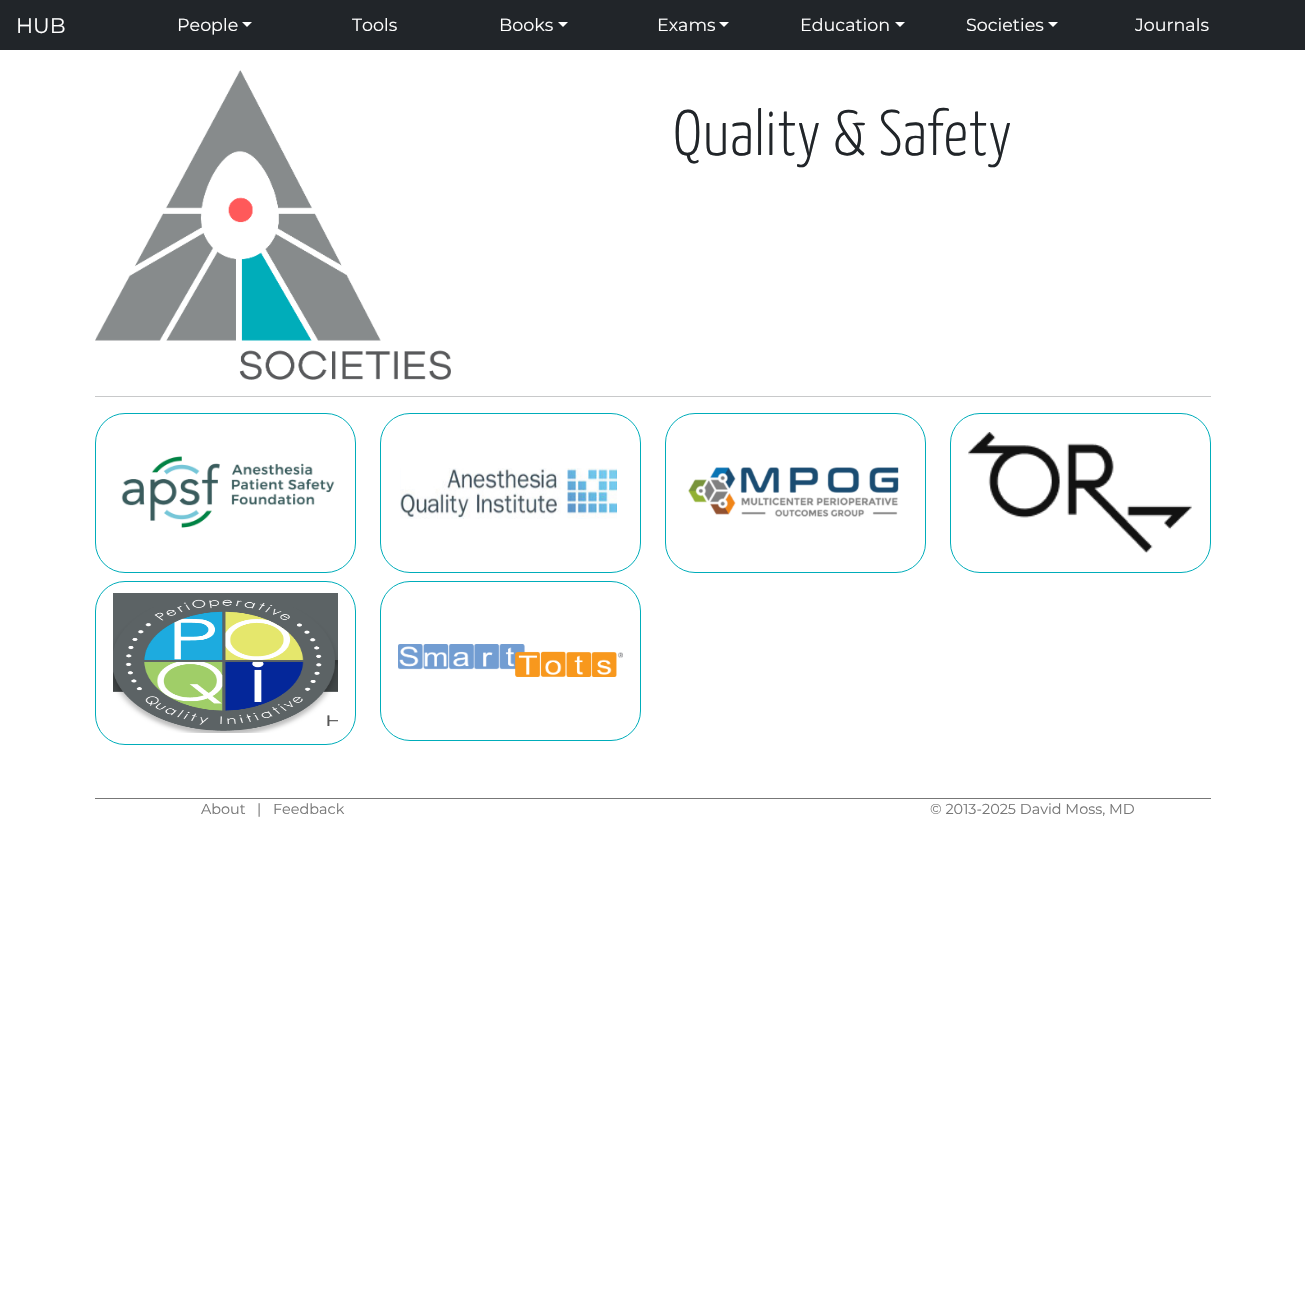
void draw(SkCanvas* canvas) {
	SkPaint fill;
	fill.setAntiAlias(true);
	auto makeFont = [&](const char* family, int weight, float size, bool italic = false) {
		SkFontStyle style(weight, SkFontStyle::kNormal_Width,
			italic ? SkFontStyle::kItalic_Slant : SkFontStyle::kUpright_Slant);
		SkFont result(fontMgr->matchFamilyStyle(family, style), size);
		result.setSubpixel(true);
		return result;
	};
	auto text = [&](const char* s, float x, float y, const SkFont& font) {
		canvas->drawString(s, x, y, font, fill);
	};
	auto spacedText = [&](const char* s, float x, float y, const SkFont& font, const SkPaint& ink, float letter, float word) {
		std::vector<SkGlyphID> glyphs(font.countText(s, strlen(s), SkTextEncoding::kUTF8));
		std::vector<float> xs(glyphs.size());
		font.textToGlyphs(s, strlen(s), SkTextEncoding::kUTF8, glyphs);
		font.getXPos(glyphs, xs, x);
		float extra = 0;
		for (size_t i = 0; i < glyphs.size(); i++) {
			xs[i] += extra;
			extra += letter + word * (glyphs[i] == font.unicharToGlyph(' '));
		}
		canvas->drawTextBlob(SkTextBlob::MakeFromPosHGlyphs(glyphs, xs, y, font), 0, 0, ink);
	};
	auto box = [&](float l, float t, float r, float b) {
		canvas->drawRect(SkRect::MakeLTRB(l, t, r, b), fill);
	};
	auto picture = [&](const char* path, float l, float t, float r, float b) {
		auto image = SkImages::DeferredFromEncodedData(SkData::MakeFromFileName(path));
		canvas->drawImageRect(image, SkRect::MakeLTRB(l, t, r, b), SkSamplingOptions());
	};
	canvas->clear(0xFFFFFFFF);
	fill.setColor(0xFF212529);
	box(0, 0, 1305, 50);
	fill.setColor(0xFFFFFFFF);
	canvas->drawPath(SkPathBuilder().moveTo(242, 22).lineTo(252, 22).lineTo(247, 27).close().detach(), fill);
	canvas->drawPath(SkPathBuilder().moveTo(558, 22).lineTo(568, 22).lineTo(563, 27).close().detach(), fill);
	canvas->drawPath(SkPathBuilder().moveTo(719, 22).lineTo(729, 22).lineTo(724, 27).close().detach(), fill);
	canvas->drawPath(SkPathBuilder().moveTo(895, 22).lineTo(905, 22).lineTo(900, 27).close().detach(), fill);
	canvas->drawPath(SkPathBuilder().moveTo(1048, 22).lineTo(1058, 22).lineTo(1053, 27).close().detach(), fill);
	picture("image0.png", 95, 70, 451, 380);
	fill.setColor(0xFFC8C9CA);
	box(95, 396, 1211, 397);
	fill.setStyle(SkPaint::kStroke_Style);
	fill.setStrokeWidth(1);
	fill.setColor(0xFF00ADBA);
	canvas->drawRoundRect(SkRect::MakeLTRB(95.5f, 413.5f, 355.5f, 572.5f), 29.5f, 29.5f, fill);
	picture("image1.png", 121, 456, 335, 528);
	canvas->drawRoundRect(SkRect::MakeLTRB(380.5f, 413.5f, 640.5f, 572.5f), 29.5f, 29.5f, fill);
	picture("image2.png", 400, 468, 617, 519);
	canvas->drawRoundRect(SkRect::MakeLTRB(665.5f, 413.5f, 925.5f, 572.5f), 29.5f, 29.5f, fill);
	picture("image3.png", 688, 467, 899, 517);
	canvas->drawRoundRect(SkRect::MakeLTRB(950.5f, 413.5f, 1210.5f, 572.5f), 29.5f, 29.5f, fill);
	picture("image4.png", 968, 432, 1192, 553);
	canvas->drawRoundRect(SkRect::MakeLTRB(95.5f, 581.5f, 355.5f, 744.5f), 29.5f, 29.5f, fill);
	picture("image5.png", 113, 593, 338, 733);
	canvas->drawRoundRect(SkRect::MakeLTRB(380.5f, 581.5f, 640.5f, 740.5f), 29.5f, 29.5f, fill);
	picture("image6.png", 398, 644, 623, 677);
	fill.setStyle(SkPaint::kFill_Style);
	fill.setColor(0xFF777777);
	box(95, 798, 1211, 799);
	auto font1 = makeFont("Montserrat", 400, 21);
	fill.setColor(0xFFFFFFFF);
	text("HUB", 16, 33, font1);
	auto font2 = makeFont("Montserrat", 400, 17.5f);
	text("People", 177, 31, font2);
	text("Tools", 352, 31, font2);
	text("Books", 499, 31, font2);
	text("Exams", 657, 31, font2);
	text("Education", 800, 31, font2);
	text("Societies", 966, 31, font2);
	text("Journals", 1135, 31, font2);
	auto font3 = makeFont("Yanone Kaffeesatz", 300, 64);
	fill.setColor(0xFF212529);
	spacedText("Quality & Safety", 673, 155, font3, fill, 0.5f, 0);
	auto font4 = makeFont("Montserrat", 400, 14.4f);
	fill.setColor(0xFF777777);
	text("About", 201, 814, font4);
	text("|", 257, 814, font4);
	text("Feedback", 273, 814, font4);
	text("© 2013-2025 David Moss, MD", 930, 814, font4);
}
